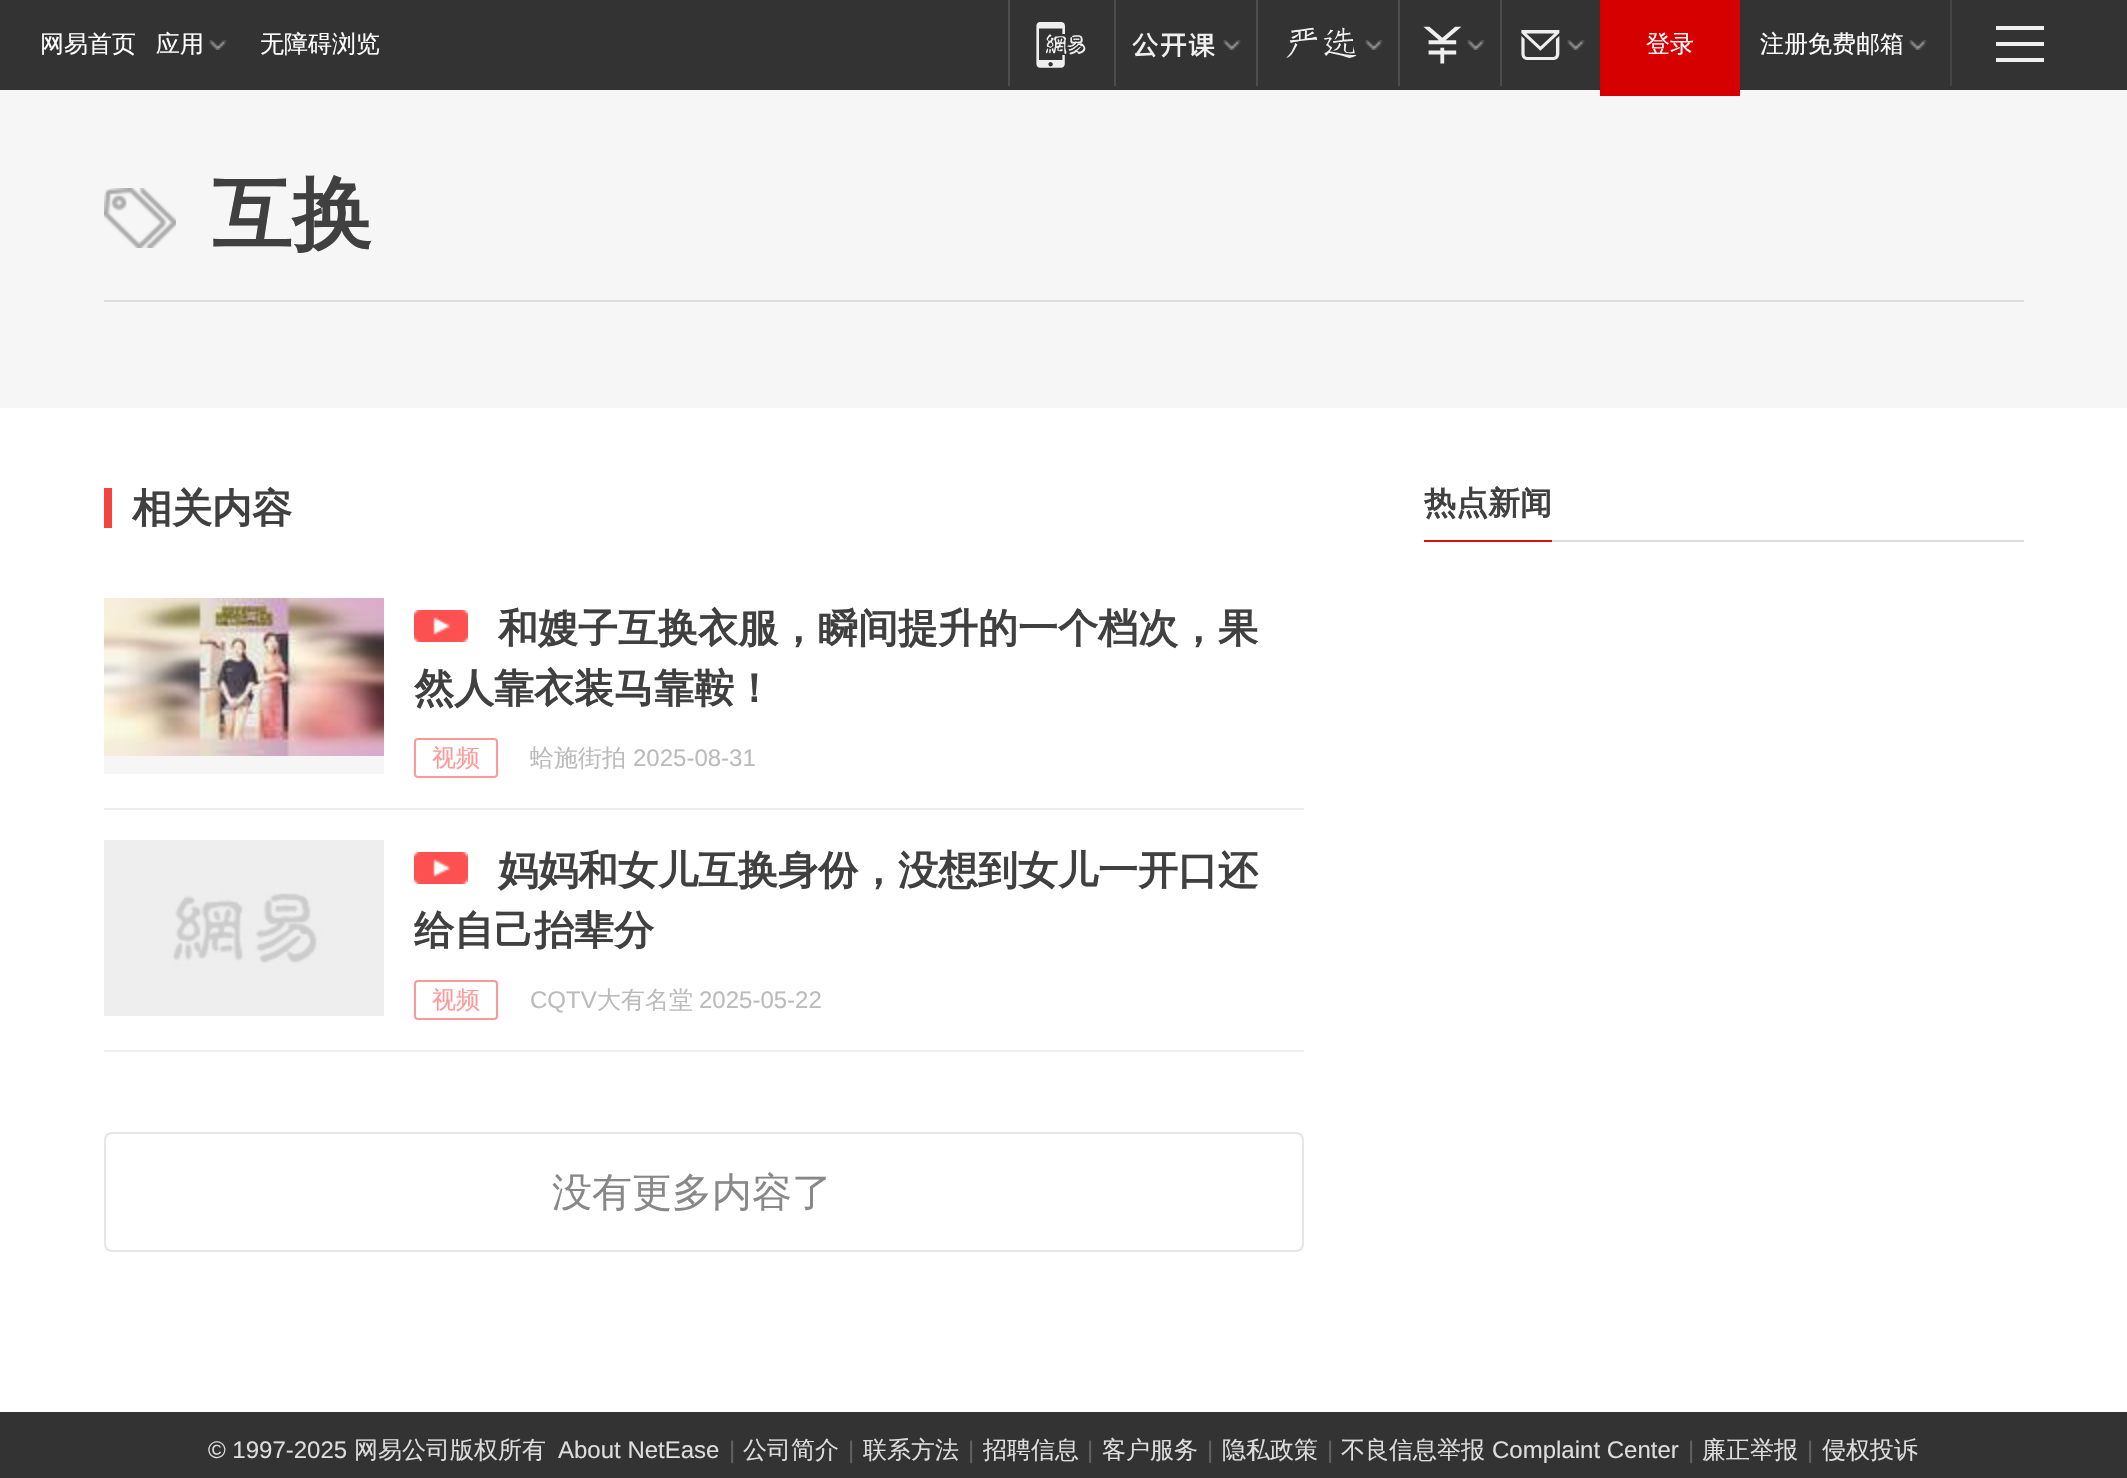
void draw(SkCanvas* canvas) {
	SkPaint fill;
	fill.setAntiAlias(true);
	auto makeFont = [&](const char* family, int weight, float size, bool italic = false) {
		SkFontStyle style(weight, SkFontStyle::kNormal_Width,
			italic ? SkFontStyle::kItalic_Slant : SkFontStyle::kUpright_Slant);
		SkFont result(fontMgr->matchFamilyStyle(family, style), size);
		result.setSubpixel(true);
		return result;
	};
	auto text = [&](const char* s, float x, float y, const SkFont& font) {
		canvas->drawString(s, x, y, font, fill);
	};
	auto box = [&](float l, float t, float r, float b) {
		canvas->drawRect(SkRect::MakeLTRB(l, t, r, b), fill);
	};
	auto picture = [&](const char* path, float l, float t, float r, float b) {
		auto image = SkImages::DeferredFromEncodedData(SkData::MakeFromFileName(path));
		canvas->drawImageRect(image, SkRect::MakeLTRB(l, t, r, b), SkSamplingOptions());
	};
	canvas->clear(0xFFFFFFFF);
	fill.setColor(0xFF333333);
	box(0, 0, 2127, 90);
	picture("image0.png", 209, 40, 227, 50);
	fill.setColor(0xFF4D4D4D);
	box(1008, 0, 1010, 86);
	picture("image1.png", 1036, 22, 1086, 68);
	box(1114, 0, 1116, 86);
	picture("image2.png", 1132, 32, 1215, 58);
	picture("image0.png", 1223, 40, 1241, 50);
	box(1256, 0, 1258, 86);
	picture("image3.png", 1286, 27, 1357, 58);
	picture("image0.png", 1365, 40, 1383, 50);
	box(1398, 0, 1400, 86);
	picture("image4.png", 1423, 26, 1462, 64);
	picture("image0.png", 1467, 40, 1485, 50);
	box(1500, 0, 1502, 86);
	picture("image5.png", 1521, 30, 1560, 60);
	picture("image0.png", 1567, 40, 1585, 50);
	fill.setColor(0xFFF6F6F6);
	box(0, 90, 2127, 408);
	fill.setColor(0xFFD60000);
	box(1600, 0, 1740, 96);
	picture("image0.png", 1909, 40, 1927, 50);
	fill.setColor(0xFF444444);
	box(1950, 0, 1952, 86);
	fill.setColor(0xFFEFEFEF);
	box(1996, 26, 2044, 30);
	box(1996, 42, 2044, 46);
	box(1996, 58, 2044, 62);
	picture("image6.png", 104, 188, 176, 248);
	fill.setColor(0xFFDDDDDD);
	box(104, 300, 2024, 302);
	fill.setColor(0xFFF34540);
	box(104, 488, 112, 528);
	fill.setColor(0xFFF0F0F0);
	box(104, 808, 1304, 810);
	fill.setColor(0xFFF6F6F6);
	box(104, 756, 384, 774);
	picture("image7.png", 104, 598, 384, 756);
	picture("image8.png", 414, 610, 468, 642);
	fill.setStyle(SkPaint::kStroke_Style);
	fill.setStrokeWidth(2);
	fill.setColor(0xFFFF9999);
	canvas->drawRoundRect(SkRect::MakeLTRB(415, 739, 497, 777), 3, 3, fill);
	fill.setStyle(SkPaint::kFill_Style);
	fill.setColor(0xFFF0F0F0);
	box(104, 1050, 1304, 1052);
	picture("image9.png", 104, 840, 384, 1016);
	picture("image8.png", 414, 852, 468, 884);
	fill.setStyle(SkPaint::kStroke_Style);
	fill.setColor(0xFFFF9999);
	canvas->drawRoundRect(SkRect::MakeLTRB(415, 981, 497, 1019), 3, 3, fill);
	fill.setColor(0xFFE5E5E5);
	canvas->drawRoundRect(SkRect::MakeLTRB(105, 1133, 1303, 1251), 7, 7, fill);
	fill.setStyle(SkPaint::kFill_Style);
	fill.setColor(0xFFDDDDDD);
	box(1552, 540, 2024, 542);
	fill.setColor(0xFFDB1011);
	box(1424, 540, 1552, 542);
	fill.setColor(0xFF333333);
	box(0, 1412, 2127, 1478);
	auto font1 = makeFont("WenQuanYi Zen Hei", 500, 24);
	fill.setColor(0xFFFFFFFF);
	text("网易首页", 40, 52, font1);
	text("应用", 156, 52, font1);
	text("无障碍浏览", 260, 52, font1);
	text("登录", 1646, 52, font1);
	text("注册免费邮箱", 1760, 52, font1);
	auto font2 = makeFont("WenQuanYi Zen Hei", 700, 80);
	fill.setColor(0xFF404040);
	text("互换", 212, 242, font2);
	auto font3 = makeFont("WenQuanYi Zen Hei", 700, 40);
	text("相关内容", 132, 522, font3);
	text("和嫂子互换衣服，瞬间提升的一个档次，果", 498, 642, font3);
	text("然人靠衣装马靠鞍！", 414, 702, font3);
	fill.setColor(0xFFFF9999);
	text("视频", 432, 766, font1);
	fill.setColor(0xFFBBBBBB);
	text("蛤施街拍", 530, 766, font1);
	auto font4 = makeFont("Liberation Sans", 400, 24);
	text("2025-08-31", 633, 766, font4);
	fill.setColor(0xFF404040);
	text("妈妈和女儿互换身份，没想到女儿一开口还", 498, 884, font3);
	text("给自己抬辈分", 414, 944, font3);
	fill.setColor(0xFFFF9999);
	text("视频", 432, 1008, font1);
	fill.setColor(0xFFBBBBBB);
	text("CQTV", 530, 1008, font4);
	text("大有名堂", 597, 1008, font1);
	text("2025-05-22", 699, 1008, font4);
	auto font5 = makeFont("WenQuanYi Zen Hei", 500, 40);
	fill.setColor(0xFF888888);
	text("没有更多内容了", 552, 1206, font5);
	auto font6 = makeFont("WenQuanYi Zen Hei", 700, 32);
	fill.setColor(0xFF404040);
	text("热点新闻", 1424, 514, font6);
	fill.setColor(0xFFDDDDDD);
	text("© 1997-2025", 208, 1458, font4);
	text("网易公司版权所有", 354, 1458, font1);
	text("About NetEase", 558, 1458, font4);
	fill.setColor(0xFF616161);
	text("|", 729, 1458, font4);
	fill.setColor(0xFFDDDDDD);
	text("公司简介", 743, 1458, font1);
	fill.setColor(0xFF616161);
	text("|", 848, 1458, font4);
	fill.setColor(0xFFDDDDDD);
	text("联系方法", 863, 1458, font1);
	fill.setColor(0xFF616161);
	text("|", 968, 1458, font4);
	fill.setColor(0xFFDDDDDD);
	text("招聘信息", 983, 1458, font1);
	fill.setColor(0xFF616161);
	text("|", 1087, 1458, font4);
	fill.setColor(0xFFDDDDDD);
	text("客户服务", 1102, 1458, font1);
	fill.setColor(0xFF616161);
	text("|", 1207, 1458, font4);
	fill.setColor(0xFFDDDDDD);
	text("隐私政策", 1222, 1458, font1);
	fill.setColor(0xFF616161);
	text("|", 1327, 1458, font4);
	fill.setColor(0xFFDDDDDD);
	text("不良信息举报", 1341, 1458, font1);
	text("Complaint Center", 1492, 1458, font4);
	fill.setColor(0xFF616161);
	text("|", 1688, 1458, font4);
	fill.setColor(0xFFDDDDDD);
	text("廉正举报", 1702, 1458, font1);
	fill.setColor(0xFF616161);
	text("|", 1807, 1458, font4);
	fill.setColor(0xFFDDDDDD);
	text("侵权投诉", 1822, 1458, font1);
}
